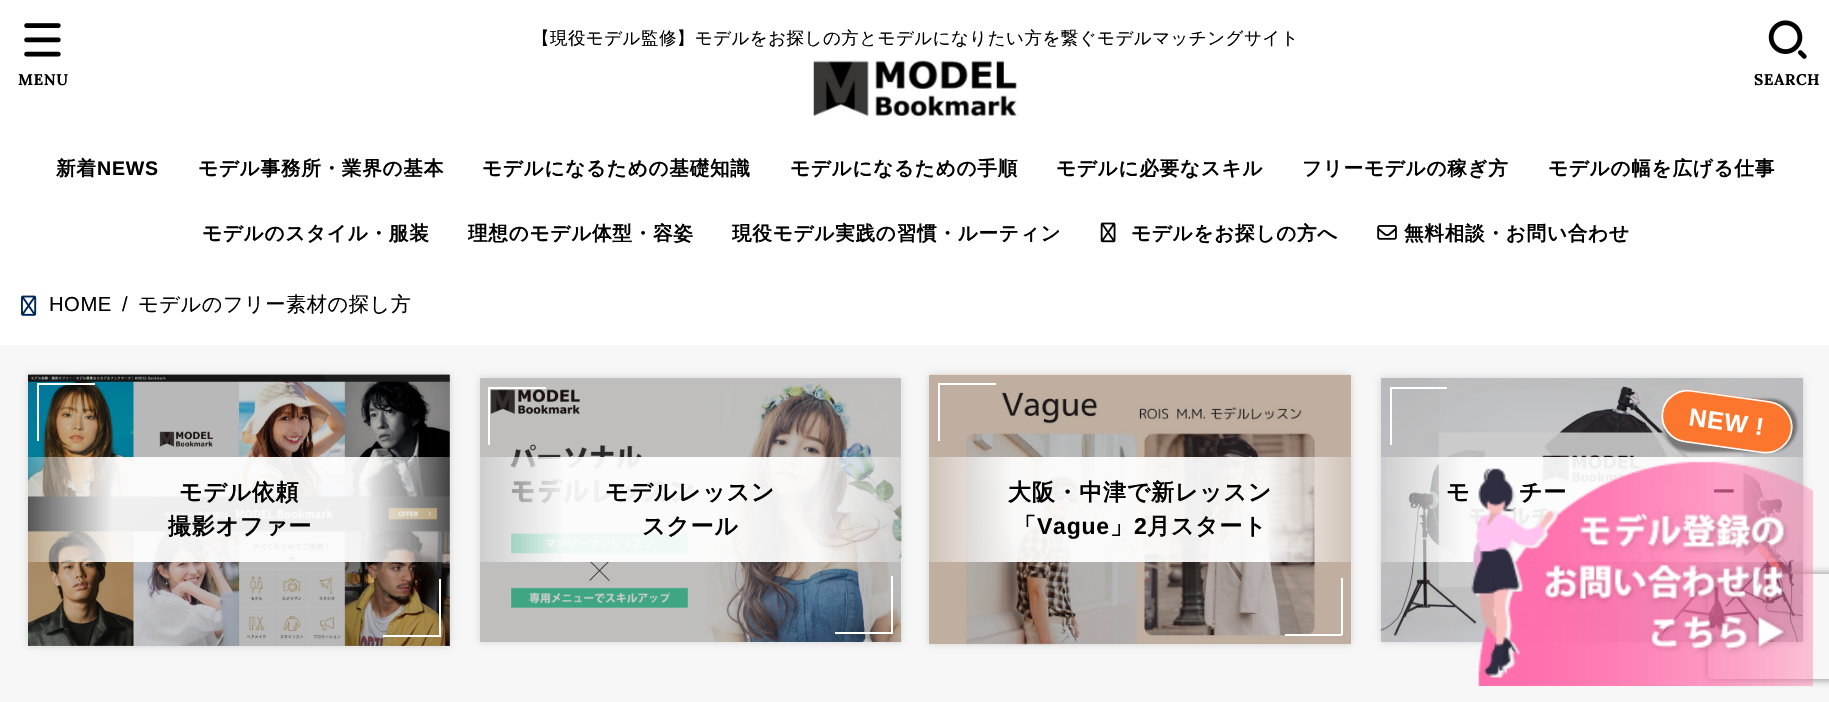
void draw(SkCanvas* canvas) {
	SkPaint fill;
	fill.setAntiAlias(true);
	auto makeFont = [&](const char* family, int weight, float size, bool italic = false) {
		SkFontStyle style(weight, SkFontStyle::kNormal_Width,
			italic ? SkFontStyle::kItalic_Slant : SkFontStyle::kUpright_Slant);
		SkFont result(fontMgr->matchFamilyStyle(family, style), size);
		result.setSubpixel(true);
		return result;
	};
	auto spacedText = [&](const char* s, float x, float y, const SkFont& font, const SkPaint& ink, float letter, float word) {
		std::vector<SkGlyphID> glyphs(font.countText(s, strlen(s), SkTextEncoding::kUTF8));
		std::vector<float> xs(glyphs.size());
		font.textToGlyphs(s, strlen(s), SkTextEncoding::kUTF8, glyphs);
		font.getXPos(glyphs, xs, x);
		float extra = 0;
		for (size_t i = 0; i < glyphs.size(); i++) {
			xs[i] += extra;
			extra += letter + word * (glyphs[i] == font.unicharToGlyph(' '));
		}
		canvas->drawTextBlob(SkTextBlob::MakeFromPosHGlyphs(glyphs, xs, y, font), 0, 0, ink);
	};
	auto box = [&](float l, float t, float r, float b) {
		canvas->drawRect(SkRect::MakeLTRB(l, t, r, b), fill);
	};
	auto picture = [&](const char* path, float l, float t, float r, float b) {
		auto image = SkImages::DeferredFromEncodedData(SkData::MakeFromFileName(path));
		canvas->drawImageRect(image, SkRect::MakeLTRB(l, t, r, b), SkSamplingOptions());
	};
	canvas->clear(0xFFF7F7F7);
	fill.setColor(0xFFFFFFFF);
	box(0, 0, 1829, 345);
	picture("image0.png", 813, 60, 1018, 116);
	picture("image1.png", 24, 23, 61, 57);
	picture("image2.png", 1768, 20, 1807, 59);
	picture("image3.png", 1100, 222, 1116, 243);
	picture("image4.png", 1377, 225, 1397, 240);
	picture("image5.png", 21, 295, 37, 316);
	fill.setColor(0x26000000);
	fill.setMaskFilter(SkMaskFilter::MakeBlur(kNormal_SkBlurStyle, 3.5f));
	canvas->drawRect(SkRect::MakeLTRB(1381, 378, 1803, 642), fill);
	fill.setMaskFilter(nullptr);
	picture("image6.png", 1380, 378, 1803, 642);
	fill.setColor(0x33000000);
	box(1381, 378, 1803, 642);
	fill.setColor(0xFFFFFFFF);
	box(1390, 387, 1447, 389);
	box(1390, 387, 1392, 445);
	fill.setColor(0x40FFFFFF);
	box(1381, 457, 1803, 562);
	{
		const SkColor colors[] = {0x00FFFFFF, 0xE6FFFFFF, 0xE6FFFFFF, 0x00FFFFFF};
		const float stops[] = {0, 0.2f, 0.8f, 1};
		const SkPoint ends[] = {{1803, 509}, {1381, 509}};
		fill.setShader(SkGradientShader::MakeLinear(ends, colors, stops, 4, SkTileMode::kClamp));
		fill.setAlpha(255);
	}
	box(1386, 457, 1798, 562);
	fill.setShader(nullptr);
	fill.setColor(0x66000000);
	fill.setMaskFilter(SkMaskFilter::MakeBlur(kNormal_SkBlurStyle, 1.5f));
	canvas->drawRoundRect(SkRect::MakeLTRB(1664, 399, 1797, 452), 26.5f, 26.5f, fill);
	fill.setMaskFilter(nullptr);
	fill.setColor(0xFFFC772D);
	canvas->drawPath(SkPathBuilder().moveTo(1691, 390).lineTo(1770, 401).cubicTo(1784, 403, 1794, 416, 1792, 431).cubicTo(1790, 445, 1777, 455, 1763, 453).lineTo(1684, 442).cubicTo(1670, 440, 1660, 427, 1662, 412).cubicTo(1664, 398, 1677, 388, 1691, 390).close().detach(), fill);
	fill.setStyle(SkPaint::kStroke_Style);
	fill.setStrokeWidth(1.7f);
	fill.setColor(0xFFFFFFFF);
	canvas->drawPath(SkPathBuilder().moveTo(1691.5f, 391).lineTo(1770, 402).cubicTo(1783.5f, 404, 1793.5f, 417, 1791.5f, 430.5f).cubicTo(1789.5f, 444.5f, 1776.5f, 454, 1762.5f, 452.5f).lineTo(1684.5f, 441.5f).cubicTo(1670.5f, 439.5f, 1660.5f, 426.5f, 1662.5f, 412.5f).cubicTo(1664.5f, 398.5f, 1677.5f, 389, 1691.5f, 391).close().detach(), fill);
	fill.setStyle(SkPaint::kFill_Style);
	fill.setColor(0x26000000);
	fill.setMaskFilter(SkMaskFilter::MakeBlur(kNormal_SkBlurStyle, 3.5f));
	canvas->drawRect(SkRect::MakeLTRB(28, 375, 450, 646), fill);
	fill.setMaskFilter(nullptr);
	picture("image7.png", 28, 374, 450, 646);
	fill.setColor(0x33000000);
	box(28, 375, 450, 646);
	fill.setColor(0xFFFFFFFF);
	box(37, 383, 95, 385);
	box(37, 383, 39, 441);
	fill.setColor(0x40FFFFFF);
	box(28, 457, 450, 562);
	{
		const SkColor colors[] = {0x00FFFFFF, 0xE6FFFFFF, 0xE6FFFFFF, 0x00FFFFFF};
		const float stops[] = {0, 0.2f, 0.8f, 1};
		const SkPoint ends[] = {{450, 509}, {28, 509}};
		fill.setShader(SkGradientShader::MakeLinear(ends, colors, stops, 4, SkTileMode::kClamp));
		fill.setAlpha(255);
	}
	box(30, 457, 448, 562);
	fill.setShader(nullptr);
	fill.setColor(0xFFFFFFFF);
	box(439, 579, 441, 637);
	box(383, 635, 441, 637);
	fill.setColor(0x26000000);
	fill.setMaskFilter(SkMaskFilter::MakeBlur(kNormal_SkBlurStyle, 3.5f));
	canvas->drawRect(SkRect::MakeLTRB(480, 378, 901, 642), fill);
	fill.setMaskFilter(nullptr);
	picture("image8.png", 479, 378, 902, 642);
	fill.setColor(0xFFFFFFFF);
	box(488, 387, 546, 389);
	box(488, 387, 490, 445);
	fill.setColor(0x40FFFFFF);
	box(480, 457, 901, 562);
	{
		const SkColor colors[] = {0x00FFFFFF, 0xE6FFFFFF, 0xE6FFFFFF, 0x00FFFFFF};
		const float stops[] = {0, 0.2f, 0.8f, 1};
		const SkPoint ends[] = {{901, 509}, {480, 509}};
		fill.setShader(SkGradientShader::MakeLinear(ends, colors, stops, 4, SkTileMode::kClamp));
		fill.setAlpha(255);
	}
	box(485, 457, 899, 562);
	fill.setShader(nullptr);
	fill.setColor(0xFFFFFFFF);
	box(891, 576, 893, 634);
	box(835, 632, 893, 634);
	fill.setColor(0x26000000);
	fill.setMaskFilter(SkMaskFilter::MakeBlur(kNormal_SkBlurStyle, 3.5f));
	canvas->drawRect(SkRect::MakeLTRB(929, 375, 1351, 644), fill);
	fill.setMaskFilter(nullptr);
	picture("image9.png", 929, 374, 1351, 645);
	fill.setColor(0x33000000);
	box(929, 375, 1351, 644);
	fill.setColor(0xFFFFFFFF);
	box(938, 383, 996, 385);
	box(938, 383, 940, 441);
	fill.setColor(0x40FFFFFF);
	box(929, 457, 1351, 562);
	{
		const SkColor colors[] = {0x00FFFFFF, 0xE6FFFFFF, 0xE6FFFFFF, 0x00FFFFFF};
		const float stops[] = {0, 0.2f, 0.8f, 1};
		const SkPoint ends[] = {{1351, 509}, {929, 509}};
		fill.setShader(SkGradientShader::MakeLinear(ends, colors, stops, 4, SkTileMode::kClamp));
		fill.setAlpha(255);
	}
	box(932, 457, 1348, 562);
	fill.setShader(nullptr);
	fill.setColor(0xFFFFFFFF);
	box(1341, 578, 1343, 635);
	box(1285, 634, 1342, 636);
	canvas->save();
	canvas->clipPath(SkPathBuilder(SkPathFillType::kEvenOdd).moveTo(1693, 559).lineTo(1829, 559).lineTo(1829, 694).lineTo(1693, 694).close().moveTo(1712, 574).lineTo(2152, 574).cubicTo(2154, 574, 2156, 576, 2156, 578).lineTo(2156, 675).cubicTo(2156, 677, 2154, 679, 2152, 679).lineTo(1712, 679).cubicTo(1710, 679, 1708, 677, 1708, 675).lineTo(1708, 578).cubicTo(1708, 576, 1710, 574, 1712, 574).close().detach(), true);
	fill.setColor(0xFF808080);
	fill.setMaskFilter(SkMaskFilter::MakeBlur(kNormal_SkBlurStyle, 4.5f));
	canvas->drawRoundRect(SkRect::MakeLTRB(1708, 574, 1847, 679), 4, 4, fill);
	fill.setMaskFilter(nullptr);
	canvas->restore();
	auto font1 = makeFont("WenQuanYi Zen Hei", 500, 17.5f);
	fill.setColor(0xFF000000);
	spacedText("【現役モデル監修】モデルをお探しの方とモデルになりたい方を繋ぐモデルマッチングサイト", 532, 44, font1, fill, 0.45f, 0);
	auto font2 = makeFont("Lora", 700, 15.5f);
	spacedText("MENU", 18, 85, font2, fill, 0.5f, 0);
	spacedText("SEARCH", 1754, 85, font2, fill, 0.5f, 0);
	auto font3 = makeFont("WenQuanYi Zen Hei", 700, 19.6f);
	spacedText("新着", 56, 175, font3, fill, 0.75f, 0);
	auto font4 = makeFont("Liberation Sans", 700, 19.6f);
	spacedText("NEWS", 97, 175, font4, fill, 0.75f, 0);
	spacedText("モデル事務所・業界の基本", 198, 175, font3, fill, 0.75f, 0);
	spacedText("モデルになるための基礎知識", 482, 175, font3, fill, 0.75f, 0);
	spacedText("モデルになるための手順", 790, 175, font3, fill, 0.75f, 0);
	spacedText("モデルに必要なスキル", 1056, 175, font3, fill, 0.75f, 0);
	spacedText("フリーモデルの稼ぎ方", 1302, 175, font3, fill, 0.75f, 0);
	spacedText("モデルの幅を広げる仕事", 1548, 175, font3, fill, 0.75f, 0);
	spacedText("モデルのスタイル・服装", 202, 240, font3, fill, 0.75f, 0);
	spacedText("理想のモデル体型・容姿", 468, 240, font3, fill, 0.75f, 0);
	spacedText("現役モデル実践の習慣・ルーティン", 732, 240, font3, fill, 0.75f, 0);
	spacedText("モデルをお探しの方へ", 1131, 240, font3, fill, 0.75f, 0);
	spacedText("無料相談・お問い合わせ", 1404, 240, font3, fill, 0.75f, 0);
	auto font5 = makeFont("Liberation Sans", 400, 20.25f);
	spacedText("HOME", 49, 311, font5, fill, 0.5f, 0);
	spacedText("/", 122, 311, font5, fill, 0.5f, 0);
	auto font6 = makeFont("WenQuanYi Zen Hei", 500, 20.25f);
	spacedText("モデルのフリー素材の探し方", 138, 311, font6, fill, 0.5f, 0);
	auto font7 = makeFont("Liberation Sans", 700, 24.5f);
	fill.setColor(0xFFFFFFFF);
	canvas->save();
	canvas->rotate(8, 1688, 425);
	spacedText("NEW !", 1688, 425, font7, fill, 0.75f, 0);
	canvas->restore();
	auto font8 = makeFont("WenQuanYi Zen Hei", 700, 23);
	fill.setColor(0xFF000000);
	spacedText("モ", 1446, 500, font8, fill, 0.75f, 0);
	spacedText("チー", 1519, 500, font8, fill, 0.75f, 0);
	spacedText("ー", 1712, 500, font8, fill, 0.75f, 0);
	spacedText("モデル依頼", 179, 500, font8, fill, 0.75f, 0);
	spacedText("撮影オファー", 168, 534, font8, fill, 0.75f, 0);
	spacedText("モデルレッスン", 605, 500, font8, fill, 0.75f, 0);
	spacedText("スクール", 642, 534, font8, fill, 0.75f, 0);
	spacedText("大阪・中津で新レッスン", 1008, 500, font8, fill, 0.75f, 0);
	spacedText("「", 1013, 534, font8, fill, 0.75f, 0);
	auto font9 = makeFont("Liberation Sans", 700, 23);
	spacedText("Vague", 1037, 534, font9, fill, 0.75f, 0);
	spacedText("」", 1110, 534, font8, fill, 0.75f, 0);
	spacedText("2", 1134, 534, font9, fill, 0.75f, 0);
	spacedText("月スタート", 1147, 534, font8, fill, 0.75f, 0);
	picture("image10.png", 1471, 461, 1813, 686);
}
